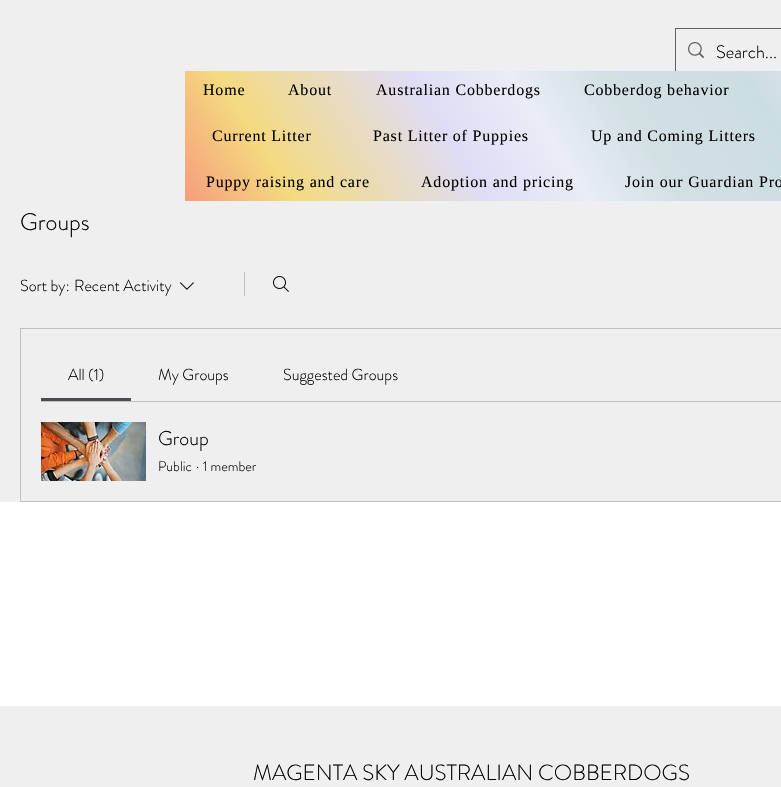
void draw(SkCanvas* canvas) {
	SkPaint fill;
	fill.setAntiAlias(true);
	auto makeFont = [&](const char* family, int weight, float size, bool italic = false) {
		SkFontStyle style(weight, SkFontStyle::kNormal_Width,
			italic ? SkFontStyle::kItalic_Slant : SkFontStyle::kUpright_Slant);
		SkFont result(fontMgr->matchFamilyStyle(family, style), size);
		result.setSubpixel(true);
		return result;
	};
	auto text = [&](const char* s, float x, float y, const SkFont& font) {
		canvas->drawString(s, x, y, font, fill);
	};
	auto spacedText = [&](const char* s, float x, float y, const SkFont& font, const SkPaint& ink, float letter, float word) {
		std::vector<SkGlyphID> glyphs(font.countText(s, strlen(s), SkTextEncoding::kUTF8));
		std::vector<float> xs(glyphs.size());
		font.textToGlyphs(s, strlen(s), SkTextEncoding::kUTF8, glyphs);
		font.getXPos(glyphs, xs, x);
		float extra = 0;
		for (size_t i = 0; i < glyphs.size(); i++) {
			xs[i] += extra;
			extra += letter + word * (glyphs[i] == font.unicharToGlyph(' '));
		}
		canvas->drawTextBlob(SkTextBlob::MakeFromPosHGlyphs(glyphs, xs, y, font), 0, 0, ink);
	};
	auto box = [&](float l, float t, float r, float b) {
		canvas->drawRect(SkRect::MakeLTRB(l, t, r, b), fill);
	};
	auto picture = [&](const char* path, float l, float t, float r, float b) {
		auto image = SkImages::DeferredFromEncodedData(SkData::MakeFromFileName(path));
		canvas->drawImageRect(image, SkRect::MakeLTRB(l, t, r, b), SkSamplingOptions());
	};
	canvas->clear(0xFFFFFFFF);
	fill.setColor(0xFFEFEFEF);
	box(0, 0, 781, 502);
	fill.setStyle(SkPaint::kStroke_Style);
	fill.setStrokeWidth(1);
	fill.setColor(0xFF616161);
	canvas->drawRect(SkRect::MakeLTRB(675.5f, 28.5f, 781.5f, 72.5f), fill);
	picture("image0.png", 688, 42, 704, 59);
	fill.setStyle(SkPaint::kFill_Style);
	{
		const SkColor colors[] = {0xFFF79D7C, 0xFFF4DA7F, 0xFFDFDDF6, 0xFFE9EDF6, 0xFFD2E0E4, 0xFFCCDDE2, 0xFFE5E4F3, 0xFFA5A1E4};
		const float stops[] = {0, 0.13f, 0.36f, 0.48f, 0.59f, 0.76f, 0.86f, 0.99f};
		const SkPoint ends[] = {{263, 325}, {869, -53}};
		fill.setShader(SkGradientShader::MakeLinear(ends, colors, stops, 8, SkTileMode::kClamp));
		fill.setAlpha(255);
	}
	box(185, 71, 781, 201);
	picture("image1.png", 179, 282, 194, 290);
	fill.setShader(nullptr);
	fill.setColor(0xFFC0C0C0);
	box(244, 272, 245, 296);
	picture("image2.png", 273, 276, 289, 292);
	fill.setStyle(SkPaint::kStroke_Style);
	canvas->drawRect(SkRect::MakeLTRB(20.5f, 328.5f, 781.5f, 501.5f), fill);
	fill.setStyle(SkPaint::kFill_Style);
	box(41, 401, 781, 402);
	fill.setColor(0xFF4A4C52);
	box(41, 398, 131, 401);
	picture("image3.png", 41, 422, 146, 481);
	fill.setColor(0xFFEFEFEF);
	box(0, 706, 781, 787);
	auto font1 = makeFont("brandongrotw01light", 300, 18);
	fill.setColor(0xFF020202);
	text("Search...", 716, 58, font1);
	auto font2 = makeFont("Liberation Serif", 400, 16);
	spacedText("Home", 203, 95, font2, fill, 0.8f, 0);
	spacedText("About", 288, 95, font2, fill, 0.8f, 0);
	spacedText("Australian Cobberdogs", 376, 95, font2, fill, 0.8f, 0);
	spacedText("Cobberdog behavior", 584, 95, font2, fill, 0.8f, 0);
	spacedText("Current Litter", 212, 141, font2, fill, 0.8f, 0);
	spacedText("Past Litter of Puppies", 373, 141, font2, fill, 0.8f, 0);
	spacedText("Up and Coming Litters", 591, 141, font2, fill, 0.8f, 0);
	spacedText("Puppy raising and care", 206, 187, font2, fill, 0.8f, 0);
	spacedText("Adoption and pricing", 421, 187, font2, fill, 0.8f, 0);
	spacedText("Join our Guardian Pro", 625, 187, font2, fill, 0.8f, 0);
	auto font3 = makeFont("brandongrotw01light", 300, 24);
	text("Groups", 20, 230, font3);
	auto font4 = makeFont("brandongrotw01light", 300, 16);
	text("Sort by:", 20, 291, font4);
	text("Recent Activity", 74, 291, font4);
	text("All (1)", 68, 380, font4);
	text("My Groups", 158, 380, font4);
	text("Suggested Groups", 283, 380, font4);
	auto font5 = makeFont("brandongrotw01light", 300, 20);
	text("Group", 158, 445, font5);
	auto font6 = makeFont("brandongrotw01light", 300, 14);
	text("Public", 158, 471, font6);
	text("·", 196, 471, font6);
	text("1 member", 203, 471, font6);
	auto font7 = makeFont("brandongrotw01light", 300, 22);
	text("MAGENTA SKY AUSTRALIAN COBBERDOGS", 253, 780, font7);
}
